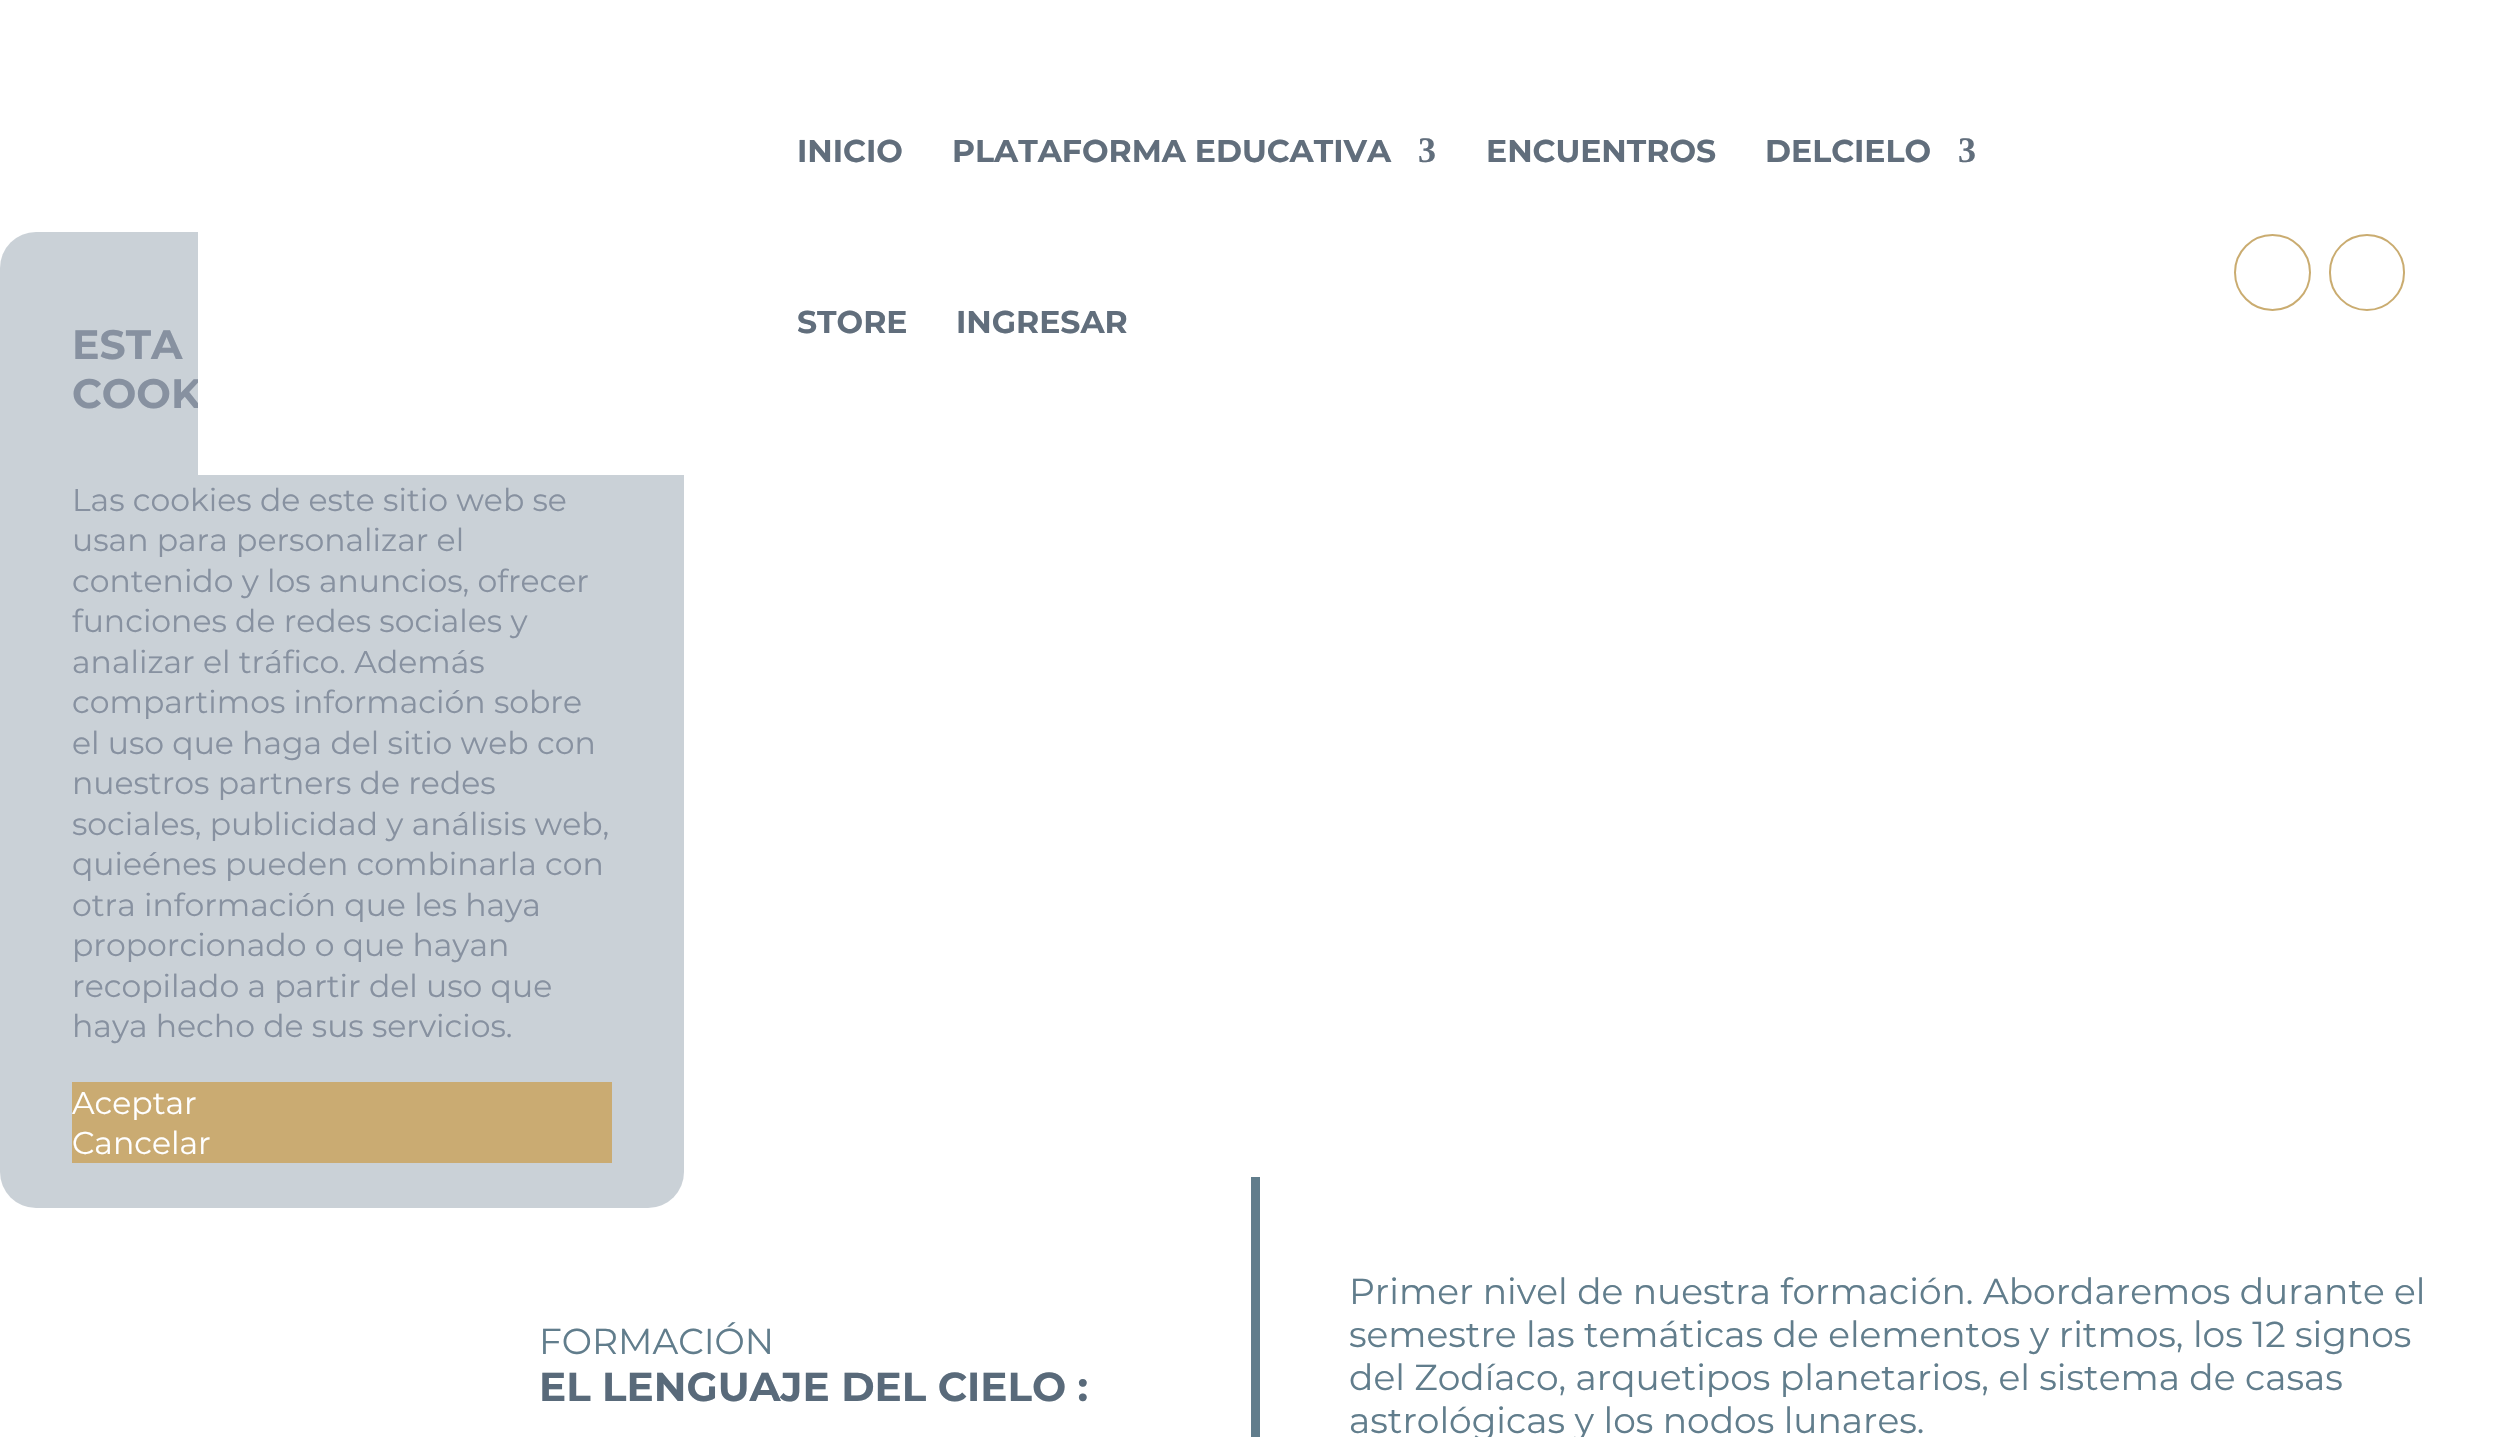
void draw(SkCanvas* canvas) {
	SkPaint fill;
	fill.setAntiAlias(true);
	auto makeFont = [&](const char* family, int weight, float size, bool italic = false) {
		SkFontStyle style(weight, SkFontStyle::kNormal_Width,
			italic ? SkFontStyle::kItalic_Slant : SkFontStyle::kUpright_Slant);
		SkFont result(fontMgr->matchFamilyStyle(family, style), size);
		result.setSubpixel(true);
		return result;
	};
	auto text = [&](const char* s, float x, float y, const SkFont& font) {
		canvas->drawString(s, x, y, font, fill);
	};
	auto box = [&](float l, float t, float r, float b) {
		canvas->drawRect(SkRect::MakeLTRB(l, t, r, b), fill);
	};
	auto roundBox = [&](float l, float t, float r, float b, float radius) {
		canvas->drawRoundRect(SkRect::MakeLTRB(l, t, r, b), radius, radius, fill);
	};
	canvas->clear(0xFFFFFFFF);
	fill.setColor(0xFFCAD1D7);
	roundBox(0, 232, 684, 1208, 36);
	fill.setColor(0xFFCAAB72);
	box(72, 1082, 612, 1163);
	fill.setStyle(SkPaint::kStroke_Style);
	fill.setStrokeWidth(2);
	fill.setColor(0xFFCAAC70);
	canvas->drawCircle(2272.5f, 272.5f, 37.5f, fill);
	canvas->drawRoundRect(SkRect::MakeLTRB(2330, 235, 2404, 310), 37, 37, fill);
	fill.setStyle(SkPaint::kFill_Style);
	fill.setColor(0xFF617D8C);
	box(1251, 1177, 1260, 1437);
	auto font1 = makeFont("Montserrat", 700, 41);
	fill.setColor(0xFF8791A0);
	text("ESTA", 72, 359, font1);
	text("COOK", 72, 408, font1);
	auto font2 = makeFont("Montserrat", 400, 31.5f);
	text("Las cookies de este sitio web se", 72, 511, font2);
	text("usan para personalizar el", 72, 551, font2);
	text("contenido y los anuncios, ofrecer", 72, 592, font2);
	text("funciones de redes sociales y", 72, 632, font2);
	text("analizar el tráfico. Además", 72, 673, font2);
	text("compartimos información sobre", 72, 713, font2);
	text("el uso que haga del sitio web con", 72, 754, font2);
	text("nuestros partners de redes", 72, 794, font2);
	text("sociales, publicidad y análisis web,", 72, 835, font2);
	text("quieénes pueden combinarla con", 72, 875, font2);
	text("otra información que les haya", 72, 916, font2);
	text("proporcionado o que hayan", 72, 956, font2);
	text("recopilado a partir del uso que", 72, 997, font2);
	text("haya hecho de sus servicios.", 72, 1037, font2);
	fill.setColor(0xFFFFFFFF);
	text("Aceptar", 72, 1114, font2);
	text("Cancelar", 72, 1154, font2);
	box(198, 232, 684, 475);
	auto font3 = makeFont("Montserrat", 700, 31.5f);
	fill.setColor(0xFF616E7C);
	text("INICIO", 797, 162, font3);
	text("PLATAFORMA EDUCATIVA", 952, 162, font3);
	auto font4 = makeFont("Liberation Serif", 700, 36);
	text("3", 1418, 162, font4);
	text("ENCUENTROS", 1486, 162, font3);
	text("DELCIELO", 1765, 162, font3);
	text("3", 1958, 162, font4);
	text("STORE", 797, 333, font3);
	text("INGRESAR", 956, 333, font3);
	auto font5 = makeFont("Montserrat", 400, 36);
	fill.setColor(0xFF617D8C);
	text("FORMACIÓN", 539, 1354, font5);
	auto font6 = makeFont("Montserrat", 700, 40.5f);
	fill.setColor(0xFF596A7A);
	text("EL LENGUAJE DEL CIELO :", 539, 1401, font6);
	fill.setColor(0xFF617D8C);
	text("Primer nivel de nuestra formación. Abordaremos durante el", 1349, 1304, font5);
	text("semestre las temáticas de elementos y ritmos, los 12 signos", 1349, 1347, font5);
	text("del Zodíaco, arquetipos planetarios, el sistema de casas", 1349, 1390, font5);
	text("astrológicas y los nodos lunares.", 1349, 1433, font5);
}
